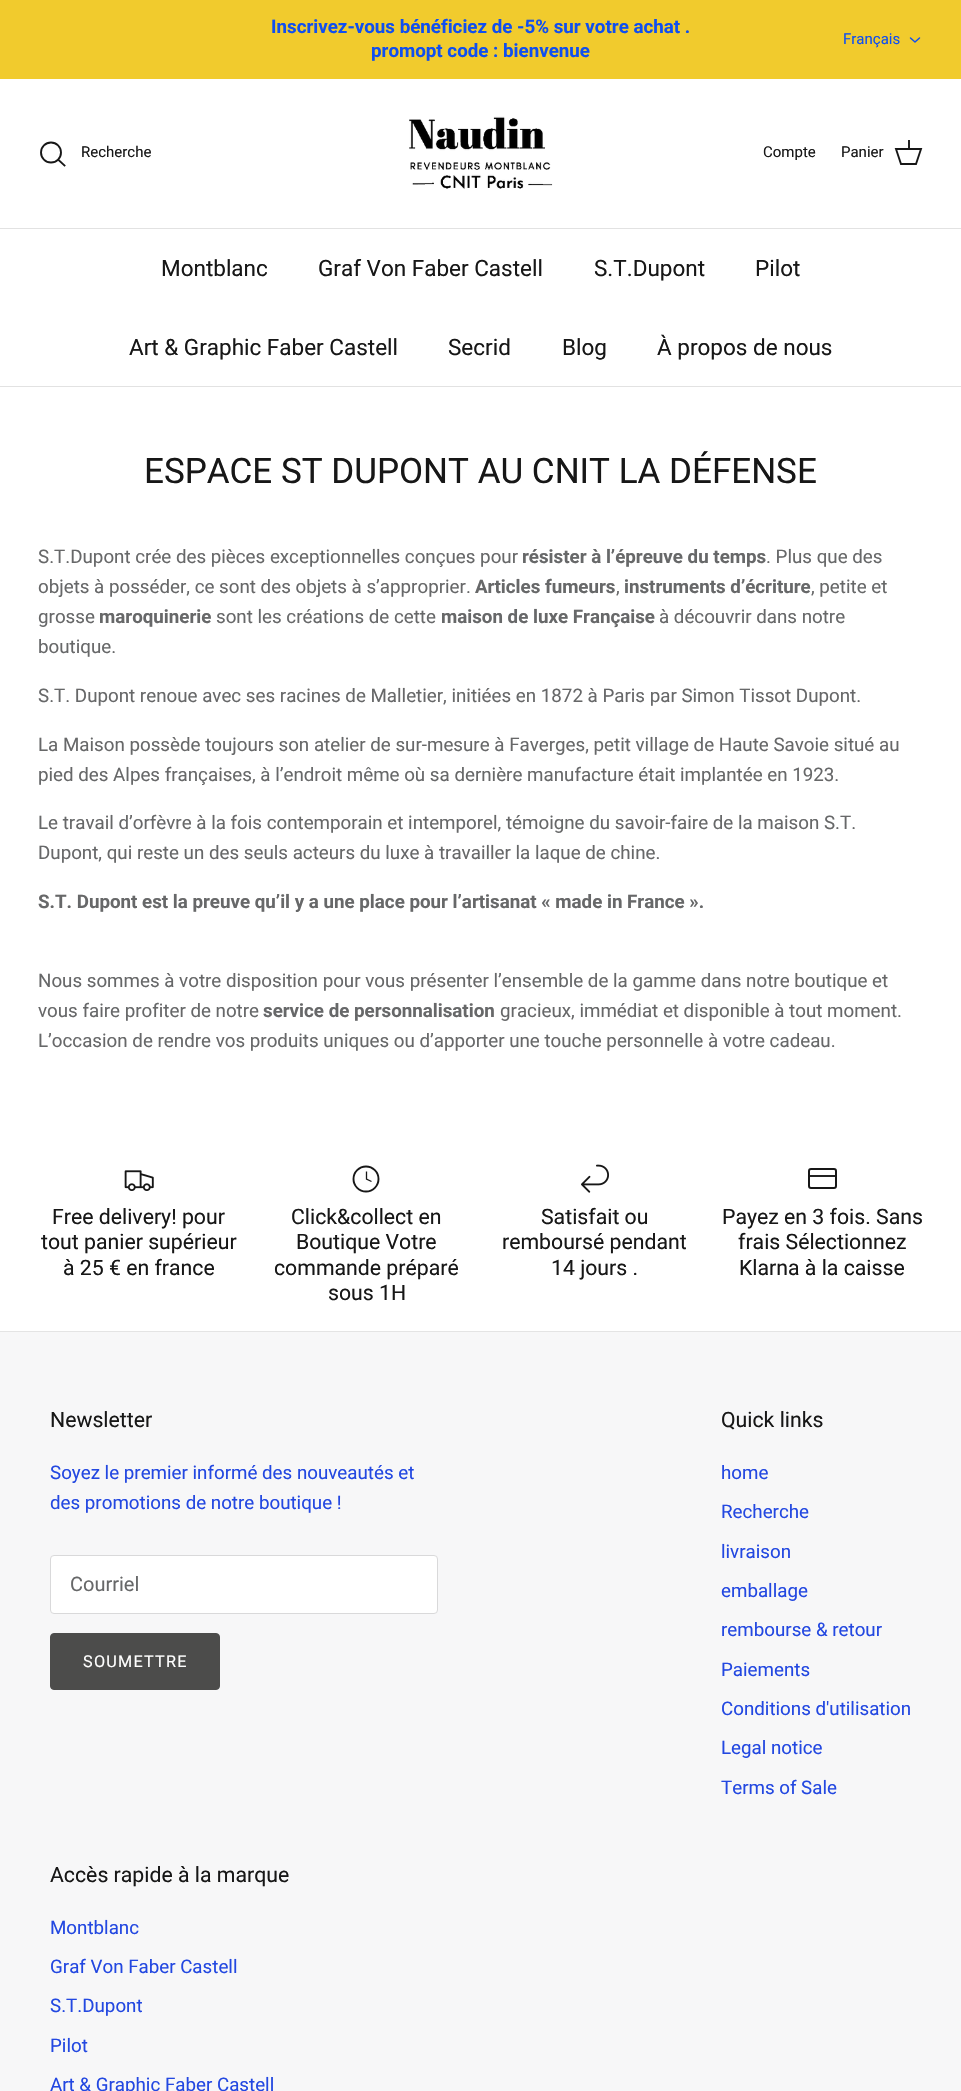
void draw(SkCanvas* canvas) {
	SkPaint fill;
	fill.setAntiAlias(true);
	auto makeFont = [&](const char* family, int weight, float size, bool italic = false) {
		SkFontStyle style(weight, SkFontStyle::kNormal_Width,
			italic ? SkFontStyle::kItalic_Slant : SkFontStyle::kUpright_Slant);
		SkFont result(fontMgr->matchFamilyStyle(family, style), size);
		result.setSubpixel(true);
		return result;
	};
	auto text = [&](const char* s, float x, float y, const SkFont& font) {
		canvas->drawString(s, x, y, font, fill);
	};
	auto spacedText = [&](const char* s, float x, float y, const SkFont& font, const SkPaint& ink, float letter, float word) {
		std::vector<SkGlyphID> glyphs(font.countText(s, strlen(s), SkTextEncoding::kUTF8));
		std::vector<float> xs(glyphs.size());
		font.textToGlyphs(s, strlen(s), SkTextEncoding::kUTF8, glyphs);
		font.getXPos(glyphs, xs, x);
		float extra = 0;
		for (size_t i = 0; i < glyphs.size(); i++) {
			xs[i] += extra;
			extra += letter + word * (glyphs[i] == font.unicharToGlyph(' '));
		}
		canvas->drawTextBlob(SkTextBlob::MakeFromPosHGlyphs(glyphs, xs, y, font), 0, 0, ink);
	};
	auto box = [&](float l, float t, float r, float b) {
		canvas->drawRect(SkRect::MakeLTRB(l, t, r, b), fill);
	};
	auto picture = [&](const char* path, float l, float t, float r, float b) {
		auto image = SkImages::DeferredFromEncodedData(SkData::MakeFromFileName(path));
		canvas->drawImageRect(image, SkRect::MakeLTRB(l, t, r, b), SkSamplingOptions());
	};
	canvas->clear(0xFFFFFFFF);
	fill.setColor(0xFFF1CB2D);
	box(0, 0, 961, 79);
	fill.setStyle(SkPaint::kStroke_Style);
	fill.setStrokeWidth(1.5f);
	fill.setStrokeCap(SkPaint::kRound_Cap);
	fill.setStrokeJoin(SkPaint::kRound_Join);
	fill.setColor(0xFF104FEF);
	canvas->drawPath(SkPathBuilder().moveTo(910.5f, 38).lineTo(915, 42).lineTo(919.5f, 38).detach(), fill);
	fill.setStyle(SkPaint::kFill_Style);
	fill.setColor(0xFFE2E2E2);
	box(0, 228, 961, 229);
	fill.setStyle(SkPaint::kStroke_Style);
	fill.setStrokeWidth(1.9f);
	fill.setStrokeCap(SkPaint::kButt_Cap);
	fill.setStrokeJoin(SkPaint::kMiter_Join);
	fill.setColor(0xFF171717);
	canvas->drawCircle(51, 152.5f, 10, fill);
	fill.setStrokeCap(SkPaint::kSquare_Cap);
	canvas->drawPath(SkPathBuilder().moveTo(58.5f, 160).lineTo(64.5f, 165.5f).detach(), fill);
	picture("image0.png", 409, 116, 553, 189);
	fill.setStrokeCap(SkPaint::kButt_Cap);
	canvas->drawPath(SkPathBuilder().moveTo(896, 149).lineTo(921, 149).lineTo(916, 164).lineTo(901, 164).close().detach(), fill);
	fill.setStyle(SkPaint::kFill_Style);
	fill.setColor(0xF2171717);
	box(908, 140, 910, 150);
	fill.setColor(0xFFE2E2E2);
	box(0, 386, 961, 387);
	fill.setColor(0xFFF7F7F8);
	box(0, 1332, 961, 2091);
	picture("image1.png", 124, 1170, 154, 1191);
	fill.setStyle(SkPaint::kStroke_Style);
	fill.setColor(0xFF171717);
	canvas->drawCircle(366, 1179, 12.5f, fill);
	fill.setStrokeWidth(1.3f);
	canvas->drawPath(SkPathBuilder().moveTo(366.5f, 1171.5f).lineTo(366.5f, 1179).lineTo(371.5f, 1181.5f).detach(), fill);
	picture("image2.png", 581, 1164, 609, 1193);
	fill.setStrokeWidth(2);
	canvas->drawRoundRect(SkRect::MakeLTRB(809, 1169, 836, 1188), 2, 2, fill);
	fill.setStyle(SkPaint::kFill_Style);
	fill.setColor(0xF2171717);
	box(809, 1175, 836, 1177);
	fill.setColor(0xFFE4E4E4);
	box(0, 1331, 961, 1332);
	fill.setColor(0xFFFFFFFF);
	canvas->drawRoundRect(SkRect::MakeLTRB(50.5f, 1555.5f, 437.5f, 1613.5f), 3.5f, 3.5f, fill);
	fill.setStyle(SkPaint::kStroke_Style);
	fill.setStrokeWidth(1);
	fill.setColor(0xFFD9D9DA);
	canvas->drawRoundRect(SkRect::MakeLTRB(50.5f, 1555.5f, 437.5f, 1613.5f), 3.5f, 3.5f, fill);
	fill.setStyle(SkPaint::kFill_Style);
	fill.setColor(0xFF4C4C4B);
	canvas->drawRoundRect(SkRect::MakeLTRB(50.5f, 1633.5f, 219.5f, 1689.5f), 3.5f, 3.5f, fill);
	fill.setStyle(SkPaint::kStroke_Style);
	canvas->drawRoundRect(SkRect::MakeLTRB(50.5f, 1633.5f, 219.5f, 1689.5f), 3.5f, 3.5f, fill);
	auto font1 = makeFont("Roboto", 700, 18.75f);
	fill.setStyle(SkPaint::kFill_Style);
	fill.setColor(0xFF104FEF);
	text("Inscrivez-vous bénéficiez de -5% sur votre achat .", 271, 33, font1);
	text("promopt code : bienvenue", 371, 57, font1);
	auto font2 = makeFont("Roboto", 400, 15);
	text("Français", 843, 44, font2);
	fill.setColor(0xFF171717);
	text("Recherche", 81, 157, font2);
	text("Compte", 763, 157, font2);
	text("Panier", 841, 157, font2);
	auto font3 = makeFont("Roboto", 400, 22.5f);
	text("Montblanc", 161, 276, font3);
	text("Graf Von Faber Castell", 318, 276, font3);
	text("S.T.Dupont", 594, 276, font3);
	text("Pilot", 755, 276, font3);
	text("Art & Graphic Faber Castell", 129, 355, font3);
	text("Secrid", 448, 355, font3);
	text("Blog", 562, 355, font3);
	text("À propos de nous", 657, 355, font3);
	auto font4 = makeFont("Roboto", 400, 35);
	text("ESPACE ST DUPONT AU CNIT LA DÉFENSE", 144, 483, font4);
	auto font5 = makeFont("Roboto", 400, 18.75f);
	fill.setColor(0xFF676869);
	text("S.T.Dupont crée des pièces exceptionnelles conçues pour", 38, 563, font5);
	text("résister à l’épreuve du temps", 522, 563, font1);
	text(". Plus que des", 766, 563, font5);
	text("objets à posséder, ce sont des objets à s’approprier.", 38, 593, font5);
	text("Articles fumeurs", 475, 593, font1);
	text(",", 616, 593, font5);
	text("instruments d’écriture", 624, 593, font1);
	text(", petite et", 811, 593, font5);
	text("grosse", 38, 623, font5);
	text("maroquinerie", 99, 623, font1);
	text("sont les créations de cette", 216, 623, font5);
	text("maison de luxe Française", 441, 623, font1);
	text("à découvrir dans notre", 659, 623, font5);
	text("boutique.", 38, 653, font5);
	text("S.T. Dupont renoue avec ses racines de Malletier, initiées en 1872 à Paris par Simon Tissot Dupont.", 38, 702, font5);
	text("La Maison possède toujours son atelier de sur-mesure à Faverges, petit village de Haute Savoie situé au", 38, 751, font5);
	text("pied des Alpes françaises, à l’endroit même où sa dernière manufacture était implantée en 1923.", 38, 781, font5);
	text("Le travail d’orfèvre à la fois contemporain et intemporel, témoigne du savoir-faire de la maison S.T.", 38, 829, font5);
	text("Dupont, qui reste un des seuls acteurs du luxe à travailler la laque de chine.", 38, 859, font5);
	text("S.T. Dupont est la preuve qu’il y a une place pour l’artisanat « made in France ».", 38, 908, font1);
	text("Nous sommes à votre disposition pour vous présenter l’ensemble de la gamme dans notre boutique et", 38, 987, font5);
	text("vous faire profiter de notre", 38, 1017, font5);
	text("service de personnalisation", 263, 1017, font1);
	text("gracieux, immédiat et disponible à tout moment.", 500, 1017, font5);
	text("L’occasion de rendre vos produits uniques ou d’apporter une touche personnelle à votre cadeau.", 38, 1047, font5);
	auto font6 = makeFont("Roboto", 400, 21.25f);
	fill.setColor(0xFF171717);
	text("Free delivery! pour", 52, 1224, font6);
	text("tout panier supérieur", 41, 1249, font6);
	text("à 25 € en france", 63, 1275, font6);
	text("Click&collect en", 291, 1224, font6);
	text("Boutique Votre", 296, 1249, font6);
	text("commande préparé", 274, 1275, font6);
	text("sous 1H", 328, 1300, font6);
	text("Satisfait ou", 541, 1224, font6);
	text("remboursé pendant", 502, 1249, font6);
	text("14 jours .", 551, 1275, font6);
	text("Payez en 3 fois. Sans", 722, 1224, font6);
	text("frais Sélectionnez", 738, 1249, font6);
	text("Klarna à la caisse", 739, 1275, font6);
	text("Newsletter", 50, 1427, font6);
	fill.setColor(0xFF2348E1);
	text("Soyez le premier informé des nouveautés et", 50, 1479, font5);
	text("des promotions de notre boutique !", 50, 1509, font5);
	auto font7 = makeFont("Roboto", 400, 20);
	fill.setColor(0xFF676869);
	text("Courriel", 70, 1591, font7);
	auto font8 = makeFont("Roboto", 400, 16.25f);
	fill.setColor(0xFFFFFFFF);
	spacedText("SOUMETTRE", 83, 1667, font8, fill, 1.25f, 0);
	fill.setColor(0xFF171717);
	text("Quick links", 721, 1427, font6);
	fill.setColor(0xFF2348E1);
	text("home", 721, 1479, font5);
	text("Recherche", 721, 1518, font5);
	text("livraison", 721, 1558, font5);
	text("emballage", 721, 1597, font5);
	text("rembourse & retour", 721, 1636, font5);
	text("Paiements", 721, 1676, font5);
	text("Conditions d'utilisation", 721, 1715, font5);
	text("Legal notice", 721, 1754, font5);
	text("Terms of Sale", 721, 1794, font5);
	fill.setColor(0xFF171717);
	text("Accès rapide à la marque", 50, 1882, font6);
	fill.setColor(0xFF2348E1);
	text("Montblanc", 50, 1934, font5);
	text("Graf Von Faber Castell", 50, 1973, font5);
	text("S.T.Dupont", 50, 2012, font5);
	text("Pilot", 50, 2052, font5);
	text("Art & Graphic Faber Castell", 50, 2091, font5);
}
